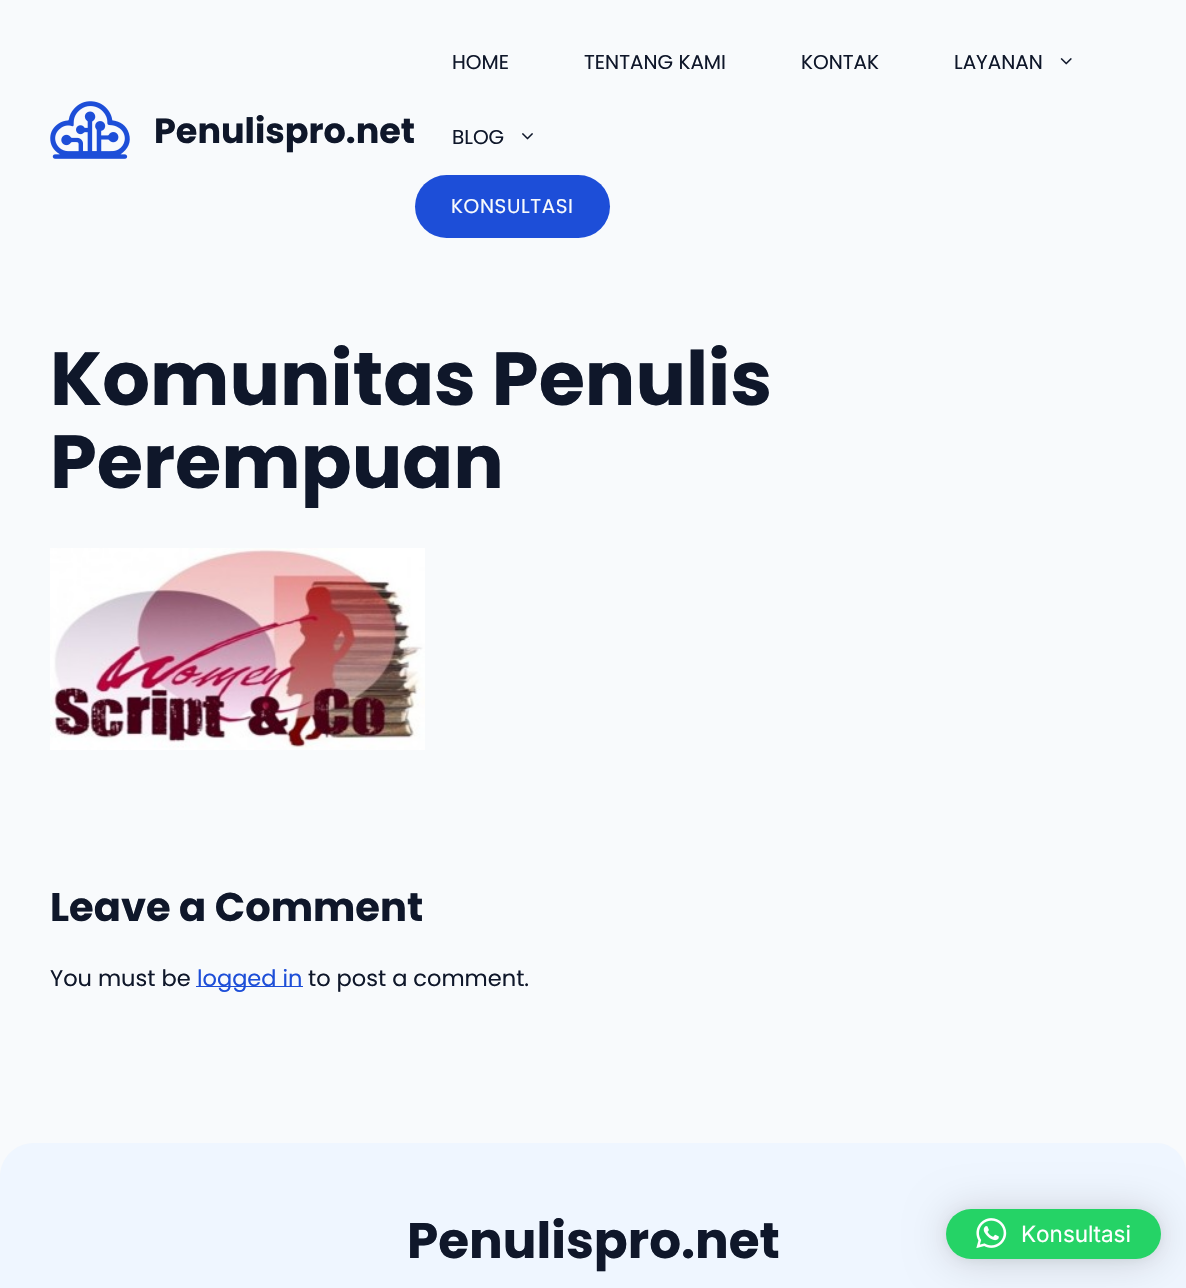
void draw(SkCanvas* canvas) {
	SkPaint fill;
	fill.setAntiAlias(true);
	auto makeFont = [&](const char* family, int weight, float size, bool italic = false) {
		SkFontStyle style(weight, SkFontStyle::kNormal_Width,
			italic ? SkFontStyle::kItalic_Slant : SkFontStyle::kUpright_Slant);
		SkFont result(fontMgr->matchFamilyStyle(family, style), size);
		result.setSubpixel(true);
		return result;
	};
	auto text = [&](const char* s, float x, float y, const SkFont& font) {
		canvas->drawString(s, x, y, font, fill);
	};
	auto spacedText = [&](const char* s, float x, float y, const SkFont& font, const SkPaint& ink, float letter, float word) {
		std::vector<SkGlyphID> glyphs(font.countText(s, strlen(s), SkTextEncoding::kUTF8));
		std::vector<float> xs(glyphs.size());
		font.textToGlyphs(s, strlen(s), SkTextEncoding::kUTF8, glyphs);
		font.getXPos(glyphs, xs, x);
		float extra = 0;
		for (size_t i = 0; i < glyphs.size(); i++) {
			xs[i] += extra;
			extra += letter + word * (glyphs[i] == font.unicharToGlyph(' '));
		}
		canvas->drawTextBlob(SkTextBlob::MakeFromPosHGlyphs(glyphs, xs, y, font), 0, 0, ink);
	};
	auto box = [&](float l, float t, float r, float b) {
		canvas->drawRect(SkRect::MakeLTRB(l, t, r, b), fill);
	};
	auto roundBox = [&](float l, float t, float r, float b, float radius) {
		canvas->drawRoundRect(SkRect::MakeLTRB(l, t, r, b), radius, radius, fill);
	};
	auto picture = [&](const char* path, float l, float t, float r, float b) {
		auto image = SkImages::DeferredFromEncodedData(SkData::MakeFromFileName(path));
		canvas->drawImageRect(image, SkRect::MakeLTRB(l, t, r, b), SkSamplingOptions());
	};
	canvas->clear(0xFFF8FAFC);
	picture("image0.png", 50, 101, 130, 159);
	picture("image1.png", 1060, 58, 1072, 65);
	picture("image2.png", 522, 133, 533, 140);
	fill.setColor(0xFF1D4ED8);
	roundBox(415, 175, 610, 238, 31.5f);
	picture("image3.png", 50, 548, 425, 750);
	box(196, 986, 303, 987);
	fill.setColor(0xFFEFF6FF);
	canvas->drawPath(SkPathBuilder().moveTo(34, 1143).lineTo(1156, 1143).cubicTo(1172.5f, 1143, 1186, 1156.5f, 1186, 1173).lineTo(1186, 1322).lineTo(0, 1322).lineTo(0, 1177).cubicTo(0, 1158, 15, 1143, 34, 1143).close().detach(), fill);
	fill.setColor(0x29000000);
	fill.setMaskFilter(SkMaskFilter::MakeBlur(kNormal_SkBlurStyle, 20));
	canvas->drawRoundRect(SkRect::MakeLTRB(946, 1211, 1161, 1261), 25, 25, fill);
	fill.setMaskFilter(nullptr);
	fill.setColor(0x0F000000);
	fill.setMaskFilter(SkMaskFilter::MakeBlur(kNormal_SkBlurStyle, 4));
	canvas->drawRoundRect(SkRect::MakeLTRB(946, 1210, 1161, 1260), 25, 25, fill);
	fill.setMaskFilter(nullptr);
	fill.setColor(0xFF25D366);
	roundBox(946, 1209, 1161, 1259, 25);
	picture("image4.png", 976, 1218, 1007, 1249);
	auto font1 = makeFont("Poppins", 700, 35);
	fill.setColor(0xFF0F172A);
	text("Penulispro.net", 154, 143, font1);
	auto font2 = makeFont("Poppins", 400, 20);
	text("HOME", 452, 69, font2);
	text("TENTANG KAMI", 584, 69, font2);
	text("KONTAK", 801, 69, font2);
	text("LAYANAN", 954, 69, font2);
	text("BLOG", 452, 144, font2);
	fill.setColor(0xFFF8FAFC);
	spacedText("KONSULTASI", 451, 213, font2, fill, 0.6f, 0);
	auto font3 = makeFont("Poppins", 700, 75);
	fill.setColor(0xFF0F172A);
	text("Komunitas Penulis", 50, 405, font3);
	text("Perempuan", 50, 488, font3);
	auto font4 = makeFont("Poppins", 700, 40);
	text("Leave a Comment", 50, 921, font4);
	auto font5 = makeFont("Poppins", 400, 22.5f);
	text("You must be", 50, 986, font5);
	fill.setColor(0xFF1D4ED8);
	text("logged in", 197, 986, font5);
	fill.setColor(0xFF0F172A);
	text("to post a comment.", 308, 986, font5);
	auto font6 = makeFont("Poppins", 700, 50);
	text("Penulispro.net", 407, 1258, font6);
	auto font7 = makeFont("Inter", 400, 22.5f);
	fill.setColor(0xFFFFFFFF);
	text("Konsultasi", 1021, 1242, font7);
}
